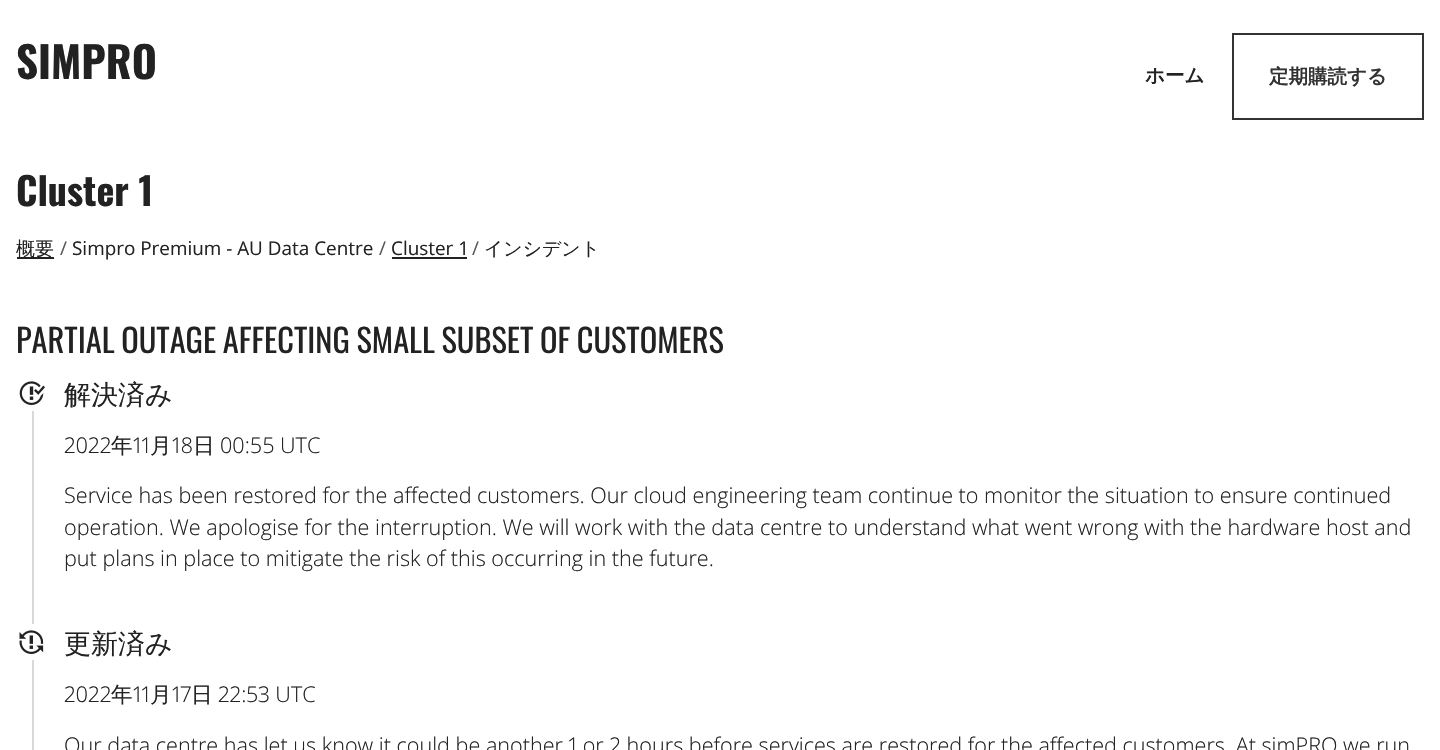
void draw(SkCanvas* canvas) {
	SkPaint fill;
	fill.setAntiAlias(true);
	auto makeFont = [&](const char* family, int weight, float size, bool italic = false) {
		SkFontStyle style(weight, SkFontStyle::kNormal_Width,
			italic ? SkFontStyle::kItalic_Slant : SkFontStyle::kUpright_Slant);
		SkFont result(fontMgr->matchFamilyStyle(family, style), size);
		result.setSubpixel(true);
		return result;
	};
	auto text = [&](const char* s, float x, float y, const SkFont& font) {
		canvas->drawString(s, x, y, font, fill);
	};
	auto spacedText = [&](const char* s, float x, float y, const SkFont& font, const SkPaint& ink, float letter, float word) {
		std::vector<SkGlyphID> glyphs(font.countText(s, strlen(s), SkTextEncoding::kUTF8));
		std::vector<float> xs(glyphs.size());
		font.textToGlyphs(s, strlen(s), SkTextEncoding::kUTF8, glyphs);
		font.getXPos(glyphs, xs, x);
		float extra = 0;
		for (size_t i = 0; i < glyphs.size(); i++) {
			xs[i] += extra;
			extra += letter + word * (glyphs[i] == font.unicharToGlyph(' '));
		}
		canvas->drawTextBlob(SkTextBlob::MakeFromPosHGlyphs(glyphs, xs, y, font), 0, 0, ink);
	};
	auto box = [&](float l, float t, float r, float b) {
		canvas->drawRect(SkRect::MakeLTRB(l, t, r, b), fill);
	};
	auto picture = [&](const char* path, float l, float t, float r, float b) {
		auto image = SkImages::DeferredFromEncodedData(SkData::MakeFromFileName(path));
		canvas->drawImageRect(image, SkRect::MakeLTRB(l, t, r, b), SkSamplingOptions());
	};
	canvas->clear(0xFFFFFFFF);
	fill.setStyle(SkPaint::kStroke_Style);
	fill.setStrokeWidth(2);
	fill.setColor(0xFF333333);
	canvas->drawRect(SkRect::MakeLTRB(1233, 34, 1423, 119), fill);
	fill.setStyle(SkPaint::kFill_Style);
	fill.setColor(0xFF222222);
	box(17, 257, 54, 259);
	box(392, 257, 467, 259);
	fill.setColor(0xFFD9D9D9);
	box(32, 411, 34, 750);
	picture("image0.png", 19, 381, 45, 405);
	fill.setColor(0xFFFFFFFF);
	box(32, 624, 34, 660);
	picture("image1.png", 19, 630, 44, 654);
	auto font1 = makeFont("Oswald", 700, 43);
	fill.setColor(0xFF222222);
	text("SIMPRO", 16, 79, font1);
	auto font2 = makeFont("WenQuanYi Zen Hei", 700, 19.5f);
	text("ホーム", 1145, 82, font2);
	fill.setColor(0xFF333333);
	text("定期購読する", 1269, 83, font2);
	auto font3 = makeFont("Oswald", 700, 38);
	fill.setColor(0xFF222222);
	text("Cluster 1", 16, 206, font3);
	auto font4 = makeFont("WenQuanYi Zen Hei", 500, 18.9f);
	text("概要", 16, 255, font4);
	auto font5 = makeFont("Open Sans", 400, 18.9f);
	fill.setColor(0xFF565656);
	text("/", 60, 255, font5);
	fill.setColor(0xFF222222);
	text("Simpro Premium - AU Data Centre", 72, 255, font5);
	fill.setColor(0xFF565656);
	text("/", 379, 255, font5);
	fill.setColor(0xFF222222);
	text("Cluster 1", 391, 255, font5);
	fill.setColor(0xFF565656);
	text("/", 472, 255, font5);
	fill.setColor(0xFF222222);
	text("インシデント", 484, 255, font4);
	auto font6 = makeFont("Oswald", 400, 32.4f);
	spacedText("PARTIAL OUTAGE AFFECTING SMALL SUBSET OF CUSTOMERS", 16, 353, font6, fill, 0, -0.75f);
	auto font7 = makeFont("WenQuanYi Zen Hei", 500, 27);
	text("解決済み", 64, 404, font7);
	auto font8 = makeFont("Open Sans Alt", 300, 21.6f);
	text("2022", 64, 453, font8);
	auto font9 = makeFont("WenQuanYi Zen Hei", 500, 21.6f);
	text("年", 111, 453, font9);
	text("11", 133, 453, font8);
	text("月", 150, 453, font9);
	text("18", 172, 453, font8);
	text("日", 193, 453, font9);
	auto font10 = makeFont("Open Sans", 300, 21.6f);
	text("00:55 UTC", 220, 453, font10);
	text("Service has been restored for the affected customers. Our cloud engineering team continue to monitor the situation to ensure continued", 64, 503, font10);
	text("operation. We apologise for the interruption. We will work with the data centre to understand what went wrong with the hardware host and", 64, 535, font10);
	text("put plans in place to mitigate the risk of this occurring in the future.", 64, 566, font10);
	text("更新済み", 64, 653, font7);
	text("2022", 64, 702, font8);
	text("年", 111, 702, font9);
	text("11", 133, 702, font8);
	text("月", 150, 702, font9);
	text("17", 172, 702, font8);
	text("日", 191, 702, font9);
	text("22:53 UTC", 218, 702, font8);
	text("Our data centre has let us know it could be another 1 or 2 hours before services are restored for the affected customers. At simPRO we run", 64, 753, font8);
}
